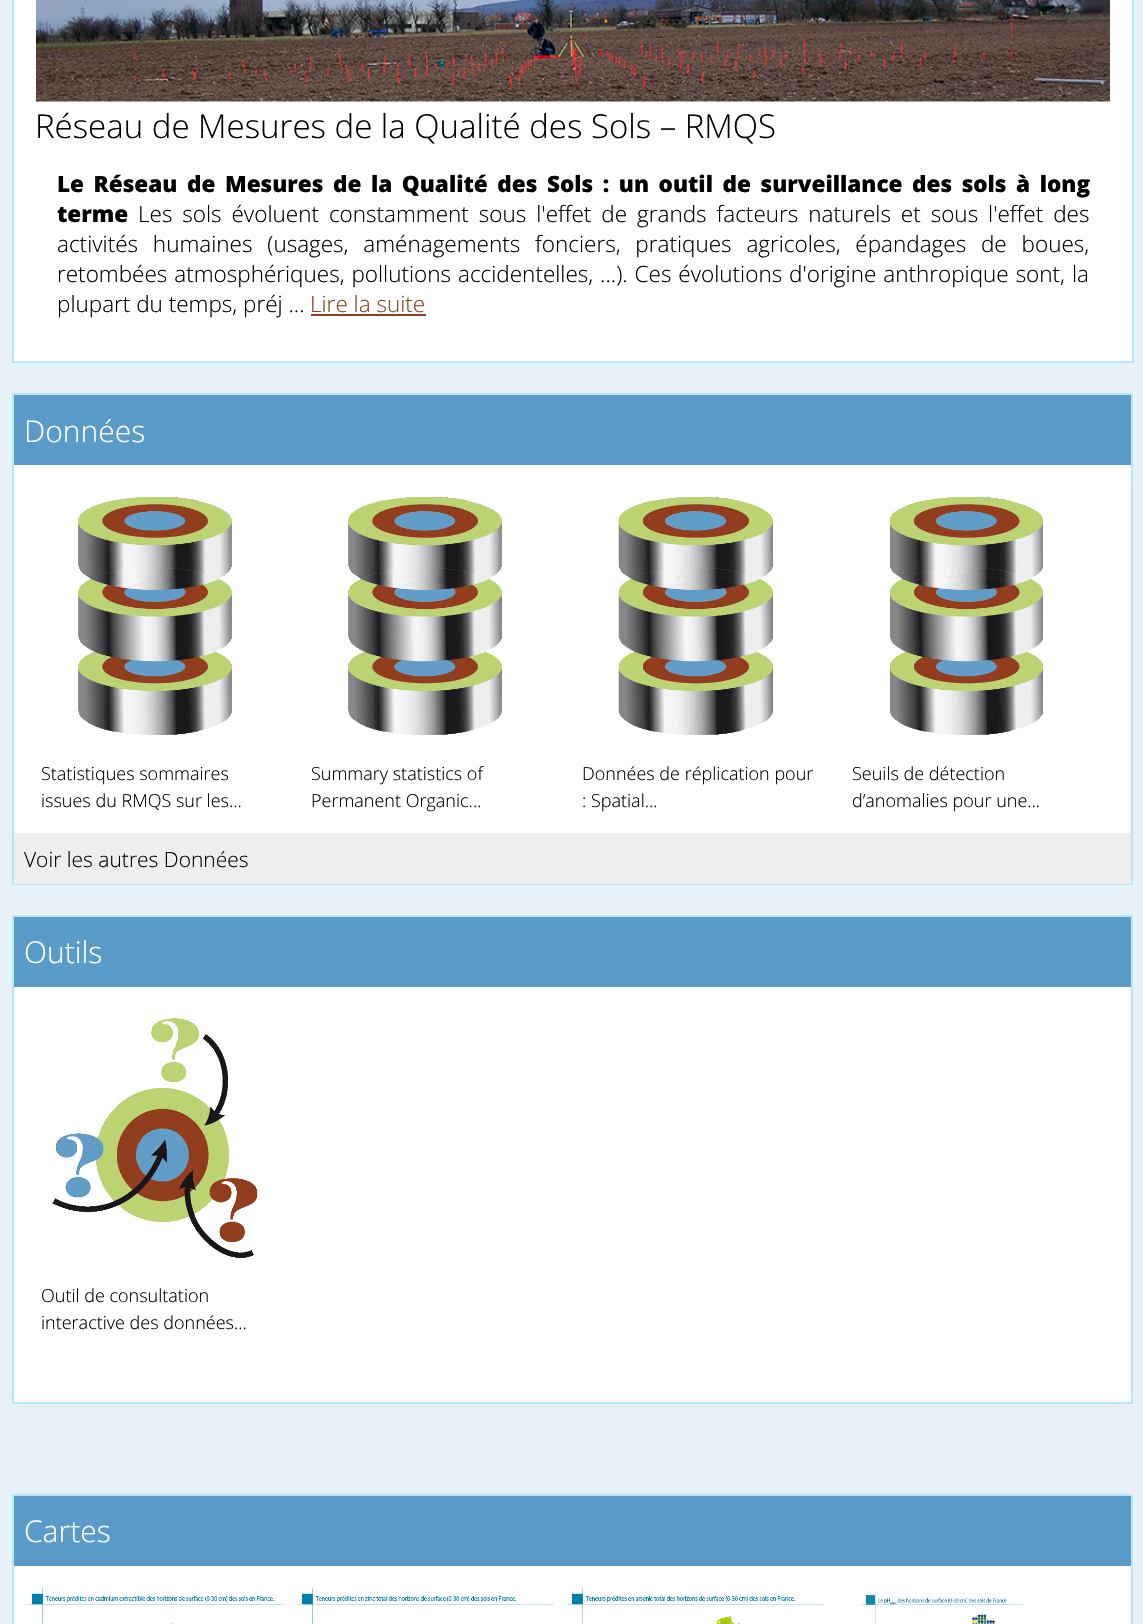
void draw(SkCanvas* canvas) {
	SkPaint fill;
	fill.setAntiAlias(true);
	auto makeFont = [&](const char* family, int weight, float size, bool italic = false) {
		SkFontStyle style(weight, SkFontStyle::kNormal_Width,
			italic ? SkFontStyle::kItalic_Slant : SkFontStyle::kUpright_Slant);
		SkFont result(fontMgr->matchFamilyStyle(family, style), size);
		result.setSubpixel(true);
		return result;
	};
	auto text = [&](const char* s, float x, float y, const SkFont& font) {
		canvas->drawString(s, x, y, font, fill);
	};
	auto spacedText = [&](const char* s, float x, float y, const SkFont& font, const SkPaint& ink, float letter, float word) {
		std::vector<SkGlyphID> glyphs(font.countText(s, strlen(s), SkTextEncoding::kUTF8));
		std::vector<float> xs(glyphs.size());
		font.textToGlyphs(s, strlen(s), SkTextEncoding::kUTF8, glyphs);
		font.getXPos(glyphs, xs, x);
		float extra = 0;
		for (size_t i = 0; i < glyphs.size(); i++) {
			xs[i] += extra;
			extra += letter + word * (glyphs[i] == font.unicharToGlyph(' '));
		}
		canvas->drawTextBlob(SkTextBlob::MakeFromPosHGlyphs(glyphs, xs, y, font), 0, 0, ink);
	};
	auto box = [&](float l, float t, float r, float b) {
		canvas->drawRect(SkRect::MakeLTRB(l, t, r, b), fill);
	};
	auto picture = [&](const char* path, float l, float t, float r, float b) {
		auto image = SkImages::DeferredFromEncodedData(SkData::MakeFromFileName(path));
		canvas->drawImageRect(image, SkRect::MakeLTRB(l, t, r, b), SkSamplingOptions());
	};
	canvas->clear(0xFFE6F2F7);
	fill.setColor(0xFFFFFFFF);
	canvas->drawRect(SkRect::MakeLTRB(13, -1, 1133, 362), fill);
	fill.setStyle(SkPaint::kStroke_Style);
	fill.setStrokeWidth(2);
	fill.setColor(0xFFB9E5F8);
	canvas->drawRect(SkRect::MakeLTRB(13, -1, 1133, 362), fill);
	picture("image0.png", 36, 0, 1110, 102);
	fill.setStyle(SkPaint::kFill_Style);
	fill.setColor(0xFF8D4021);
	box(311, 314, 426, 316);
	fill.setColor(0xFFFFFFFF);
	box(14, 465, 1131, 833);
	fill.setStyle(SkPaint::kStroke_Style);
	fill.setColor(0xFFB9E5F8);
	canvas->drawRect(SkRect::MakeLTRB(13, 394, 1132, 884), fill);
	fill.setStyle(SkPaint::kFill_Style);
	fill.setColor(0xFF5B9BC9);
	box(14, 395, 1131, 465);
	picture("image1.png", 78, 497, 232, 735);
	picture("image1.png", 348, 497, 502, 735);
	picture("image2.png", 618, 497, 773, 735);
	picture("image3.png", 889, 497, 1043, 735);
	fill.setColor(0xFFEEEEEE);
	box(14, 833, 1131, 884);
	fill.setColor(0xFFFFFFFF);
	box(14, 987, 1131, 1402);
	fill.setStyle(SkPaint::kStroke_Style);
	fill.setColor(0xFFB9E5F8);
	canvas->drawRect(SkRect::MakeLTRB(13, 916, 1132, 1403), fill);
	fill.setStyle(SkPaint::kFill_Style);
	fill.setColor(0xFF5B9BC9);
	box(14, 917, 1131, 987);
	picture("image4.png", 52, 1018, 258, 1258);
	fill.setColor(0xFFFFFFFF);
	box(14, 1566, 1131, 1624);
	fill.setStyle(SkPaint::kStroke_Style);
	fill.setColor(0xFFB9E5F8);
	canvas->drawRect(SkRect::MakeLTRB(13, 1495, 1132, 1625), fill);
	fill.setStyle(SkPaint::kFill_Style);
	fill.setColor(0xFF5B9BC9);
	box(14, 1496, 1131, 1566);
	picture("image5.png", 27, 1588, 284, 1624);
	picture("image6.png", 297, 1588, 554, 1624);
	picture("image7.png", 567, 1588, 825, 1624);
	picture("image8.png", 861, 1590, 1023, 1624);
	auto font1 = makeFont("Open Sans", 300, 33);
	fill.setColor(0xFF000000);
	text("Réseau de Mesures de la Qualité des Sols – RMQS", 35, 138, font1);
	auto font2 = makeFont("Open Sans", 800, 22.5f);
	spacedText("Le Réseau de Mesures de la Qualité des Sols : un outil de surveillance des sols à long", 57, 192, font2, fill, 0, 3.75f);
	text("terme", 57, 222, font2);
	auto font3 = makeFont("Open Sans", 300, 22.5f);
	spacedText("Les sols évoluent constamment sous l'effet de grands facteurs naturels et sous l'effet des", 138, 222, font3, fill, 0, 4.1f);
	spacedText("activités humaines (usages, aménagements fonciers, pratiques agricoles, épandages de boues,", 57, 252, font3, fill, 0, 9);
	spacedText("retombées atmosphériques, pollutions accidentelles, ...). Ces évolutions d'origine anthropique sont, la", 57, 282, font3, fill, 0, 1.1f);
	text("plupart du temps, préj ...", 57, 312, font3);
	fill.setColor(0xFF8D4021);
	text("Lire la suite", 310, 312, font3);
	auto font4 = makeFont("Open Sans", 300, 30);
	fill.setColor(0xFFFFFFFF);
	text("Données", 24, 442, font4);
	auto font5 = makeFont("Open Sans", 300, 18);
	fill.setColor(0xFF000000);
	text("Statistiques sommaires", 41, 780, font5);
	text("issues du RMQS sur les...", 41, 807, font5);
	text("Summary statistics of", 311, 780, font5);
	text("Permanent Organic...", 311, 807, font5);
	text("Données de réplication pour", 582, 780, font5);
	text(": Spatial...", 582, 807, font5);
	text("Seuils de détection", 852, 780, font5);
	text("d’anomalies pour une...", 852, 807, font5);
	auto font6 = makeFont("Open Sans", 300, 21);
	text("Voir les autres Données", 24, 867, font6);
	fill.setColor(0xFFFFFFFF);
	text("Outils", 24, 963, font4);
	fill.setColor(0xFF000000);
	text("Outil de consultation", 41, 1302, font5);
	text("interactive des données...", 41, 1329, font5);
	fill.setColor(0xFFFFFFFF);
	text("Cartes", 24, 1542, font4);
}
